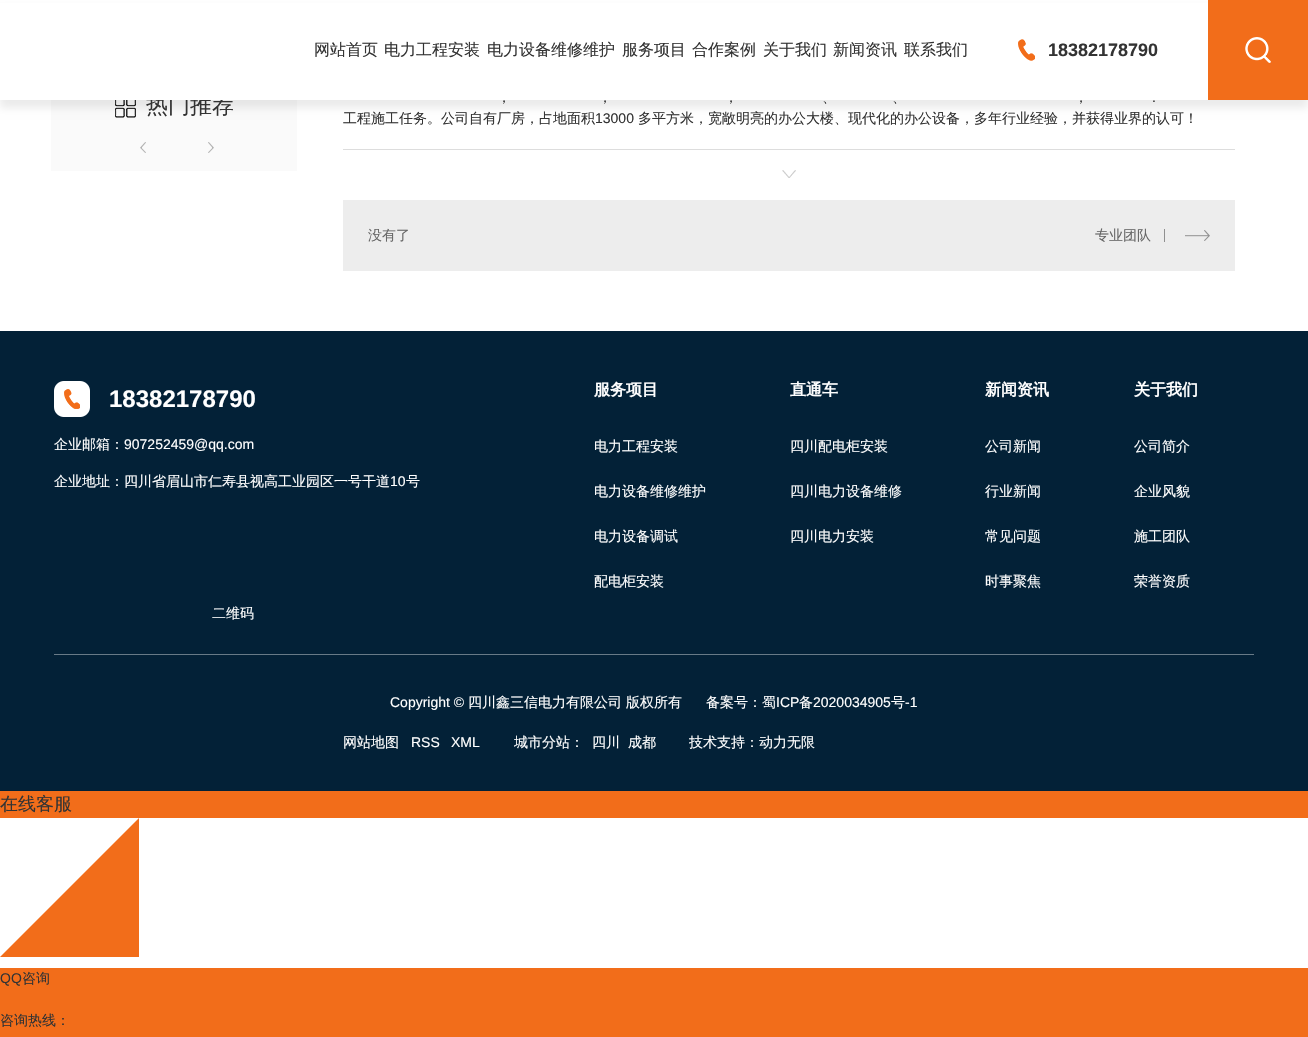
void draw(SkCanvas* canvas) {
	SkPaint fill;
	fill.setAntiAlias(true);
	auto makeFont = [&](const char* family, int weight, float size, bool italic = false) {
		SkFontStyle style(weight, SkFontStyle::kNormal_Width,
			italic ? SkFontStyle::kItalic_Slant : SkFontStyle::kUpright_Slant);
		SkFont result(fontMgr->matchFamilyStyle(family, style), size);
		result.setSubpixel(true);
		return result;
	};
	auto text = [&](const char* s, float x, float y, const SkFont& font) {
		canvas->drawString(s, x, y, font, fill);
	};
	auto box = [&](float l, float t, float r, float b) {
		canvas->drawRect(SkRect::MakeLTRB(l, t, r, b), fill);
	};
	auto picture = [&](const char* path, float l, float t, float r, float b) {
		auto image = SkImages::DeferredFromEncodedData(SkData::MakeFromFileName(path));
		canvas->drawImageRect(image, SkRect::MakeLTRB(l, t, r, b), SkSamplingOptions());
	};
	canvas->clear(0xFFFFFFFF);
	fill.setColor(0xFFFAFAFA);
	box(51, 100, 297, 171);
	picture("image2.png", 115, 100, 136, 118);
	fill.setColor(0x14000000);
	fill.setMaskFilter(SkMaskFilter::MakeBlur(kNormal_SkBlurStyle, 4));
	canvas->drawRect(SkRect::MakeLTRB(0, 8, 1308, 108), fill);
	fill.setMaskFilter(nullptr);
	fill.setColor(0xFFF26D1A);
	box(1208, 0, 1308, 100);
	picture("image1.png", 1245, 37, 1271, 63);
	picture("image3.png", 140, 142, 146, 153);
	picture("image4.png", 208, 142, 214, 153);
	fill.setColor(0xFFDDDDDD);
	box(343, 149, 1235, 150);
	picture("image5.png", 782, 170, 796, 178);
	fill.setColor(0xFFEDEDED);
	box(343, 200, 1235, 271);
	picture("image6.png", 1164, 229, 1210, 242);
	fill.setColor(0xFF032137);
	box(0, 331, 1308, 791);
	fill.setColor(0xFF687A87);
	box(54, 654, 1254, 655);
	picture("image7.png", 54, 381, 90, 417);
	fill.setColor(0xFFF26D1A);
	box(0, 791, 1308, 818);
	canvas->drawPath(SkPathBuilder().moveTo(139, 818).lineTo(0, 957).lineTo(139, 957).close().detach(), fill);
	box(0, 968, 1308, 1037);
	auto font1 = makeFont("WenQuanYi Zen Hei", 500, 22);
	fill.setColor(0xFF333333);
	text("热门推荐", 146, 113, font1);
	fill.setColor(0xFFFFFFFF);
	box(0, 3, 1208, 100);
	auto font2 = makeFont("WenQuanYi Zen Hei", 500, 16);
	fill.setColor(0xFF333333);
	text("联系我们", 904, 55, font2);
	text("新闻资讯", 833, 55, font2);
	text("关于我们", 763, 55, font2);
	text("合作案例", 692, 55, font2);
	text("服务项目", 622, 55, font2);
	text("电力设备维修维护", 487, 55, font2);
	text("电力工程安装", 384, 55, font2);
	text("网站首页", 314, 55, font2);
	picture("image0.png", 1018, 39, 1035, 61);
	auto font3 = makeFont("Liberation Sans", 700, 18);
	text("18382178790", 1048, 56, font3);
	auto font4 = makeFont("WenQuanYi Zen Hei", 500, 14);
	text("，", 497, 102, font4);
	text("，", 598, 102, font4);
	text("，", 724, 102, font4);
	text("、", 822, 102, font4);
	text("、", 892, 102, font4);
	text("，", 1074, 102, font4);
	auto font5 = makeFont("Liberation Sans", 400, 14);
	text(".", 1152, 102, font5);
	text("工程施工任务。公司自有厂房，占地面积", 343, 123, font4);
	text("13000", 595, 123, font5);
	text("多平方米，宽敞明亮的办公大楼、现代化的办公设备，多年行业经验，并获得业界的认可！", 638, 123, font4);
	fill.setColor(0xFF666666);
	text("没有了", 368, 240, font4);
	text("专业团队", 1095, 240, font4);
	auto font6 = makeFont("Liberation Sans", 700, 24);
	fill.setColor(0xFFFFFFFF);
	text("18382178790", 109, 407, font6);
	text("企业邮箱：", 54, 449, font4);
	text("907252459@qq.com", 124, 449, font5);
	text("企业地址：四川省眉山市仁寿县视高工业园区一号干道", 54, 486, font4);
	text("10", 390, 486, font5);
	text("号", 406, 486, font4);
	text("二维码", 212, 618, font4);
	auto font7 = makeFont("WenQuanYi Zen Hei", 700, 16);
	text("服务项目", 594, 395, font7);
	text("电力工程安装", 594, 451, font4);
	text("电力设备维修维护", 594, 496, font4);
	text("电力设备调试", 594, 541, font4);
	text("配电柜安装", 594, 586, font4);
	text("直通车", 790, 395, font7);
	text("四川配电柜安装", 790, 451, font4);
	text("四川电力设备维修", 790, 496, font4);
	text("四川电力安装", 790, 541, font4);
	text("新闻资讯", 985, 395, font7);
	text("公司新闻", 985, 451, font4);
	text("行业新闻", 985, 496, font4);
	text("常见问题", 985, 541, font4);
	text("时事聚焦", 985, 586, font4);
	text("关于我们", 1134, 395, font7);
	text("公司简介", 1134, 451, font4);
	text("企业风貌", 1134, 496, font4);
	text("施工团队", 1134, 541, font4);
	text("荣誉资质", 1134, 586, font4);
	text("Copyright ©", 390, 707, font5);
	text("四川鑫三信电力有限公司", 468, 707, font4);
	text("版权所有", 626, 707, font4);
	text("备案号：蜀", 706, 707, font4);
	text("ICP", 776, 707, font5);
	text("备", 799, 707, font4);
	text("2020034905", 813, 707, font5);
	text("号", 891, 707, font4);
	text("-1", 905, 707, font5);
	text("网站地图", 343, 747, font4);
	text("RSS", 411, 747, font5);
	text("XML", 451, 747, font5);
	text("城市分站：", 514, 747, font4);
	text("四川", 592, 747, font4);
	text("成都", 628, 747, font4);
	text("技术支持：动力无限", 689, 747, font4);
	auto font8 = makeFont("WenQuanYi Zen Hei", 500, 18);
	fill.setColor(0xFF333333);
	text("在线客服", 0, 810, font8);
	text("QQ", 0, 983, font5);
	text("咨询", 22, 983, font4);
	text("咨询热线：", 0, 1025, font4);
}
